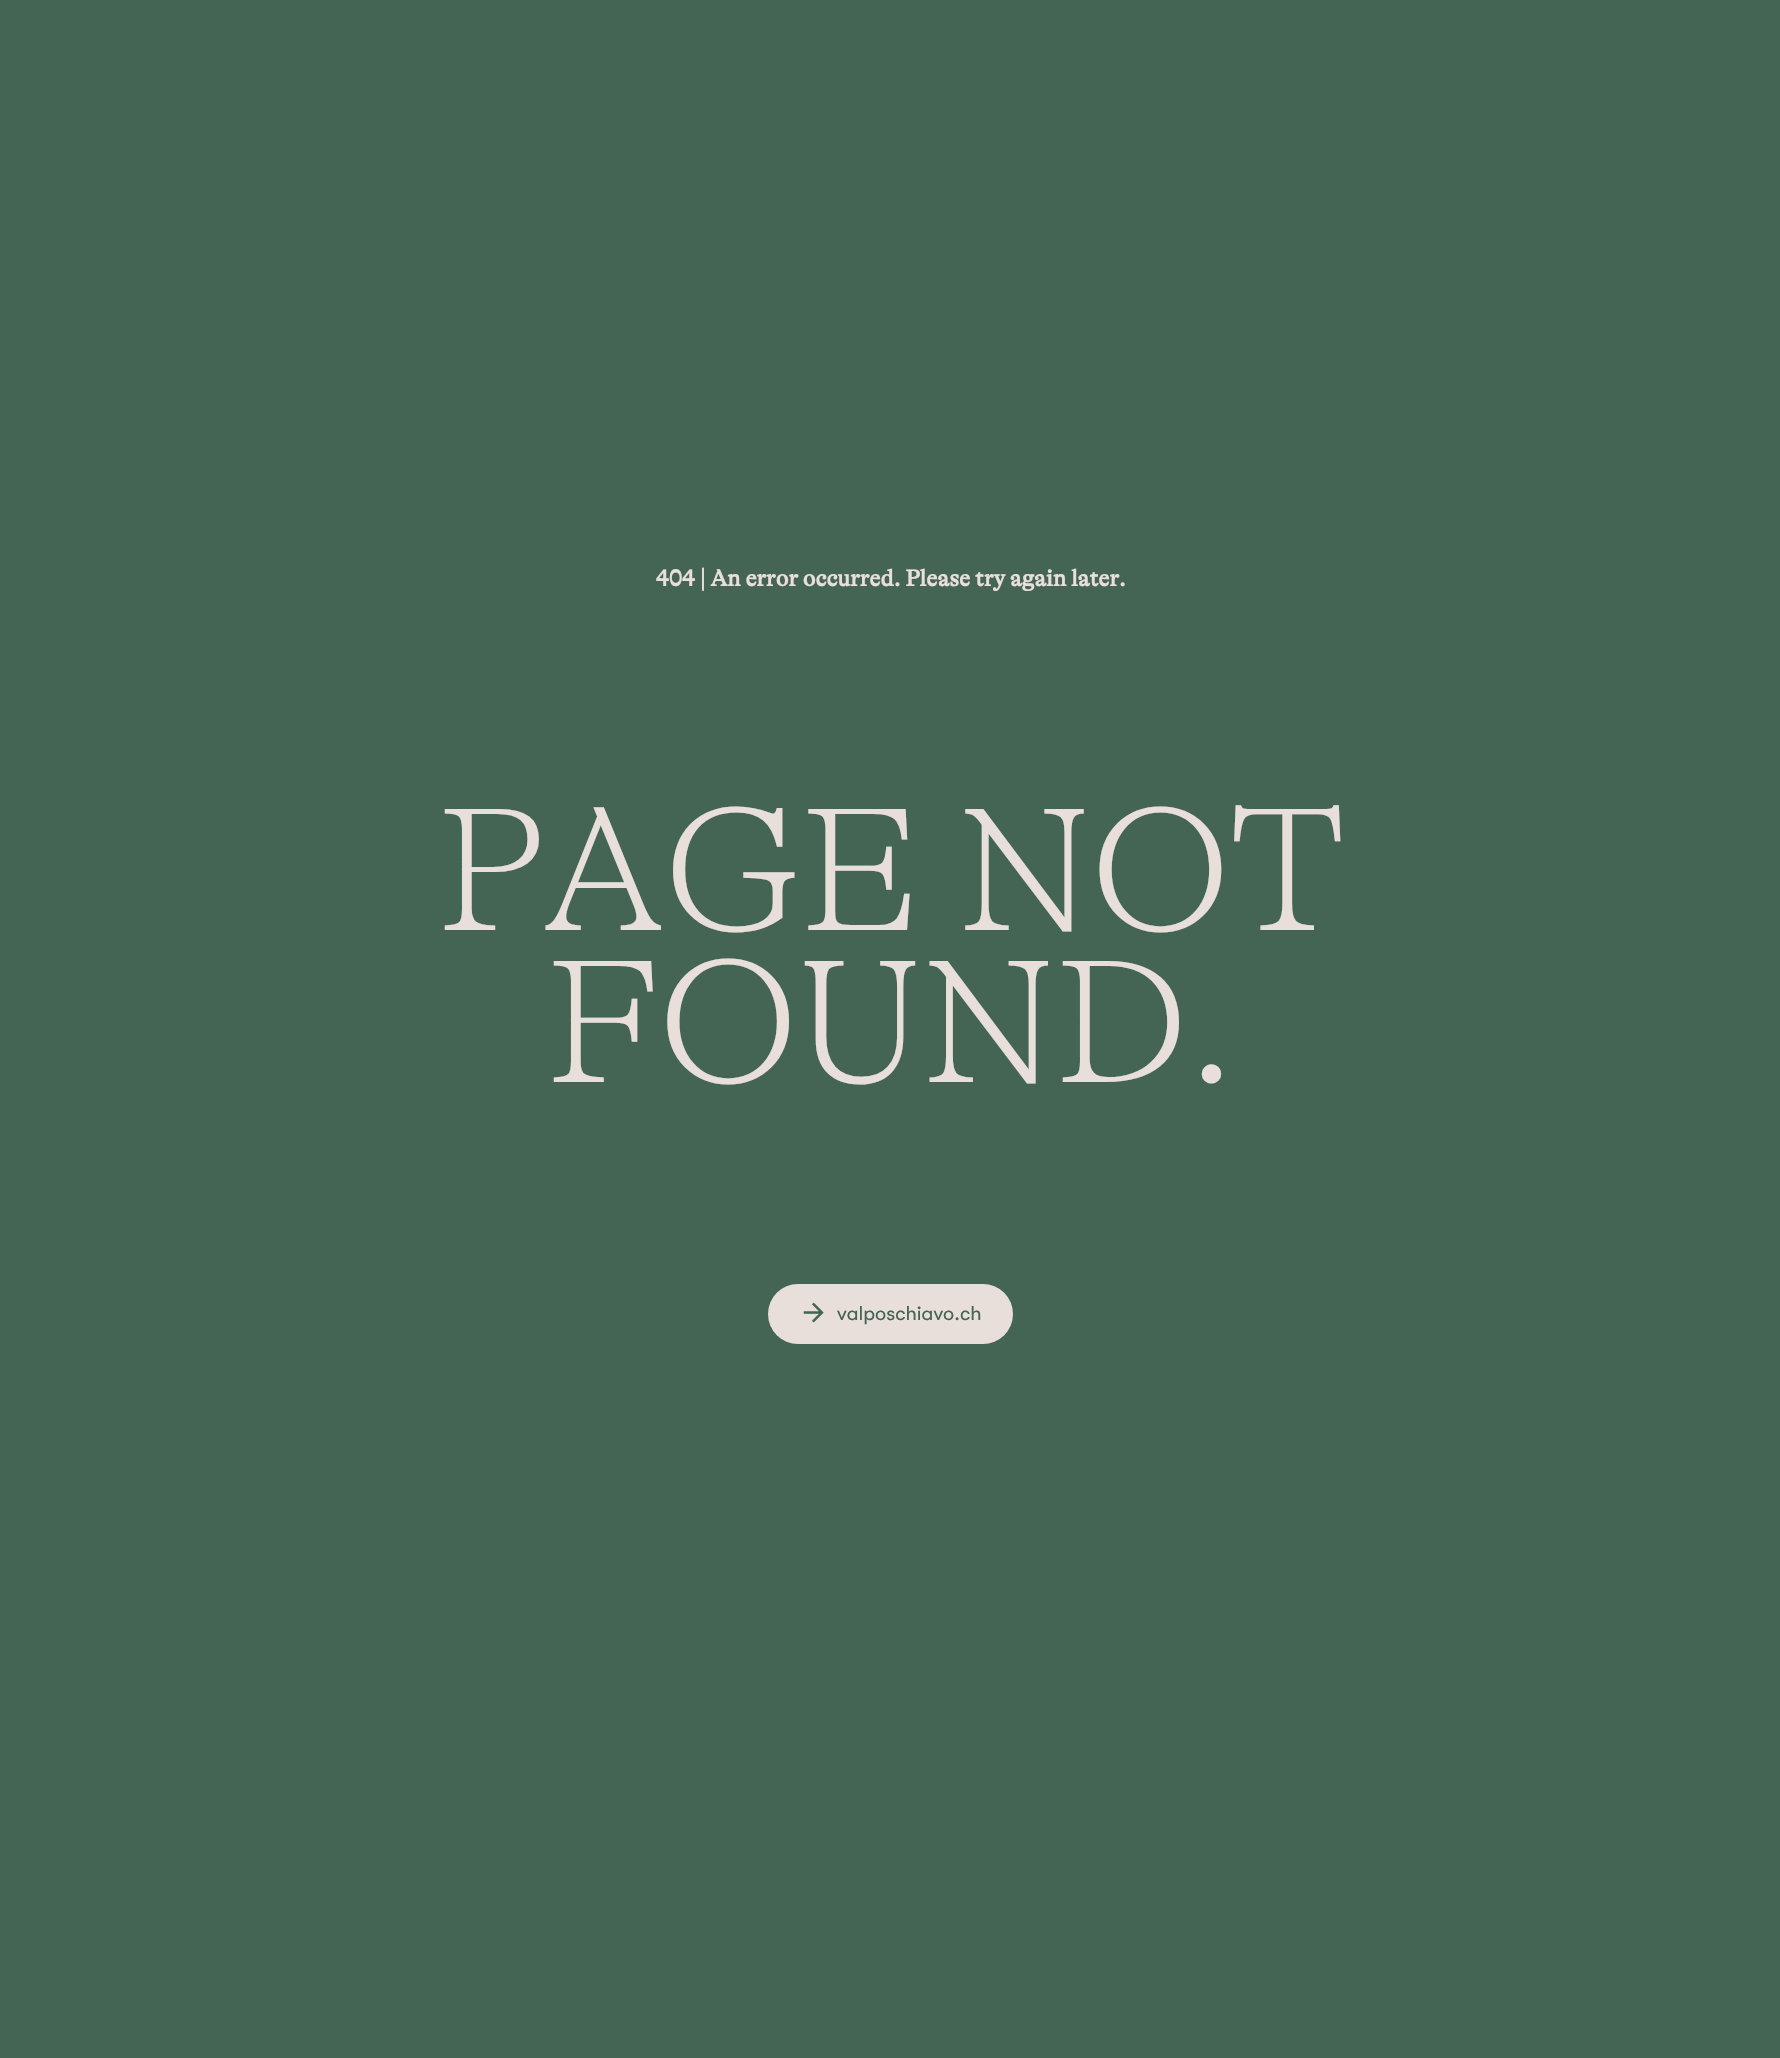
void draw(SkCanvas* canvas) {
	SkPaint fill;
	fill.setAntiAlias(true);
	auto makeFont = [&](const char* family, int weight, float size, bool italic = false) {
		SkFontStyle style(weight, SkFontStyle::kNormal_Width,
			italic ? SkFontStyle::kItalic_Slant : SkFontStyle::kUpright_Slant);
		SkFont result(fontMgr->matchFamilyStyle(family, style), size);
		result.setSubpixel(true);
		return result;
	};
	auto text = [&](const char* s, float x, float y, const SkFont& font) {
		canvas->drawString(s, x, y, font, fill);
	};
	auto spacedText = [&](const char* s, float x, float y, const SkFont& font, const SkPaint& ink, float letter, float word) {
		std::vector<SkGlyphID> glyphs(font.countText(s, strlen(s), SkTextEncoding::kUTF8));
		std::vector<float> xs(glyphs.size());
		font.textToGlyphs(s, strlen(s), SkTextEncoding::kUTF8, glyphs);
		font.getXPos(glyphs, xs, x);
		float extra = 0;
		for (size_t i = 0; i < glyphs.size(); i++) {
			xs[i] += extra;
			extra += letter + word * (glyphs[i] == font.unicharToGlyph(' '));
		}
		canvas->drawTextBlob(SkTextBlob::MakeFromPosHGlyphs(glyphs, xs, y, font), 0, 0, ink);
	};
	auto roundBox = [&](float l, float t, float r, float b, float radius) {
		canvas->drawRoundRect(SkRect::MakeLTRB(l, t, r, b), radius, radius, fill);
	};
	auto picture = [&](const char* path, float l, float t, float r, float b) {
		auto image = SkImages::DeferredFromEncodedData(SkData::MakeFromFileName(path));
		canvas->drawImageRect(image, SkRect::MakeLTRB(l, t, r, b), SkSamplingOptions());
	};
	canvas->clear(0xFF446454);
	fill.setColor(0xFFE8DFDA);
	roundBox(768, 1284, 1013, 1344, 30);
	picture("image0.png", 803, 1302, 824, 1323);
	auto font1 = makeFont("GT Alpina", 700, 23.4f);
	text("404 | An error occurred. Please try again later.", 656, 586, font1);
	auto font2 = makeFont("GT Alpina", 100, 178);
	spacedText("PAGE NOT", 436, 930, font2, fill, -1.25f, 0);
	spacedText("FOUND.", 545, 1082, font2, fill, -1.25f, 0);
	auto font3 = makeFont("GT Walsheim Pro", 400, 20);
	fill.setColor(0xFF446454);
	text("valposchiavo.ch", 837, 1320, font3);
}
